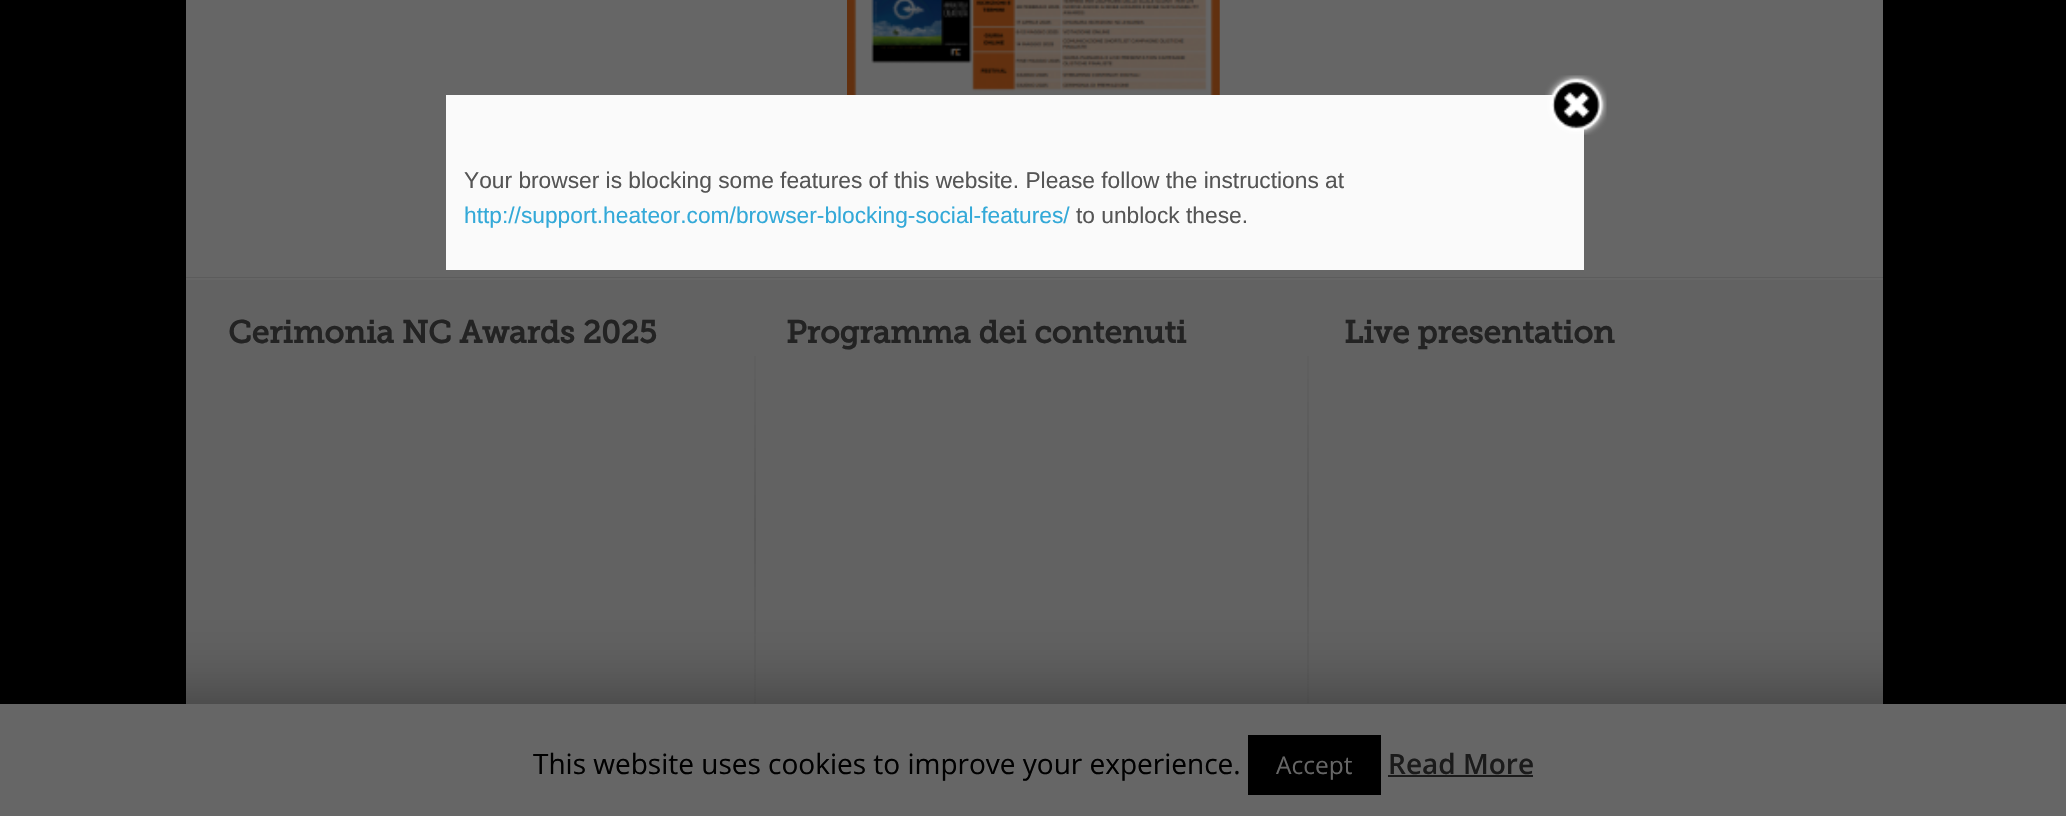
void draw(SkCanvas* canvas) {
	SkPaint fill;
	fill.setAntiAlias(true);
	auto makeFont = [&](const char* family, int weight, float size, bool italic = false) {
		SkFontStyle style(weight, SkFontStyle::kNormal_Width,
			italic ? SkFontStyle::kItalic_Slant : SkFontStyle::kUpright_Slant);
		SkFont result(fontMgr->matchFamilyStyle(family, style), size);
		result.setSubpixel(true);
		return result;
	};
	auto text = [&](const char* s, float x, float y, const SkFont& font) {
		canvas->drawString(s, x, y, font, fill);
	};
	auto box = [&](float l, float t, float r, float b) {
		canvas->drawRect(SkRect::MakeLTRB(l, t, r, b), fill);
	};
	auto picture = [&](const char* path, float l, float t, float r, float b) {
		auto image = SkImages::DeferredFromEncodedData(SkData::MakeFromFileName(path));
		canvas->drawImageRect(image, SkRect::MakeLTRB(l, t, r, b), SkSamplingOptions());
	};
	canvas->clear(0xFF000000);
	fill.setColor(0xFF666666);
	box(186, 0, 1883, 277);
	fill.setColor(0xFFFAFAFA);
	box(446, 95, 1584, 270);
	picture("image0.png", 1545, 75, 1607, 135);
	picture("image1.png", 847, 0, 1220, 95);
	fill.setColor(0xFF5C5C5C);
	box(186, 277, 1883, 278);
	fill.setColor(0xFF626262);
	box(186, 280, 1883, 704);
	fill.setColor(0xFF666666);
	box(186, 278, 1883, 280);
	{
		const SkColor colors[] = {0xFF626262, 0xFF585858, 0xFF626262};
		const float stops[] = {0, 0.5f, 1};
		const SkPoint ends[] = {{755, 298}, {755, 761}};
		fill.setShader(SkGradientShader::MakeLinear(ends, colors, stops, 3, SkTileMode::kClamp));
		fill.setAlpha(255);
	}
	box(754, 356, 756, 704);
	{
		const SkColor colors[] = {0xFF626262, 0xFF585858, 0xFF626262};
		const float stops[] = {0, 0.5f, 1};
		const SkPoint ends[] = {{1308, 298}, {1308, 761}};
		fill.setShader(SkGradientShader::MakeLinear(ends, colors, stops, 3, SkTileMode::kClamp));
		fill.setAlpha(255);
	}
	box(1307, 356, 1309, 704);
	fill.setShader(nullptr);
	fill.setColor(0x80000000);
	fill.setMaskFilter(SkMaskFilter::MakeBlur(kNormal_SkBlurStyle, 44));
	canvas->drawRect(SkRect::MakeLTRB(0, 712, 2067, 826), fill);
	fill.setMaskFilter(nullptr);
	fill.setColor(0xFF666666);
	box(0, 704, 2066, 816);
	fill.setColor(0xFF000000);
	box(1248, 735, 1381, 795);
	fill.setColor(0xFF1B1B1B);
	box(1388, 775, 1533, 777);
	auto font1 = makeFont("Liberation Sans", 400, 22.75f);
	fill.setColor(0xFF555555);
	text("Your browser is blocking some features of this website. Please follow the instructions at", 464, 188, font1);
	fill.setColor(0xFF33A9D8);
	text("http://support.heateor.com/browser-blocking-social-features/", 464, 223, font1);
	fill.setColor(0xFF555555);
	text("to unblock these.", 1076, 223, font1);
	auto font2 = makeFont("Museo Slab", 700, 31.5f);
	fill.setColor(0xFF232323);
	text("Cerimonia NC Awards 2025", 228, 343, font2);
	text("Programma dei contenuti", 786, 343, font2);
	text("Live presentation", 1344, 343, font2);
	auto font3 = makeFont("Open Sans", 400, 28);
	fill.setColor(0xFF000000);
	text("This website uses cookies to improve your experience.", 533, 774, font3);
	auto font4 = makeFont("Open Sans", 400, 24.5f);
	fill.setColor(0xFF666666);
	text("Accept", 1276, 774, font4);
	auto font5 = makeFont("Open Sans", 600, 28);
	fill.setColor(0xFF1B1B1B);
	text("Read More", 1388, 774, font5);
}
